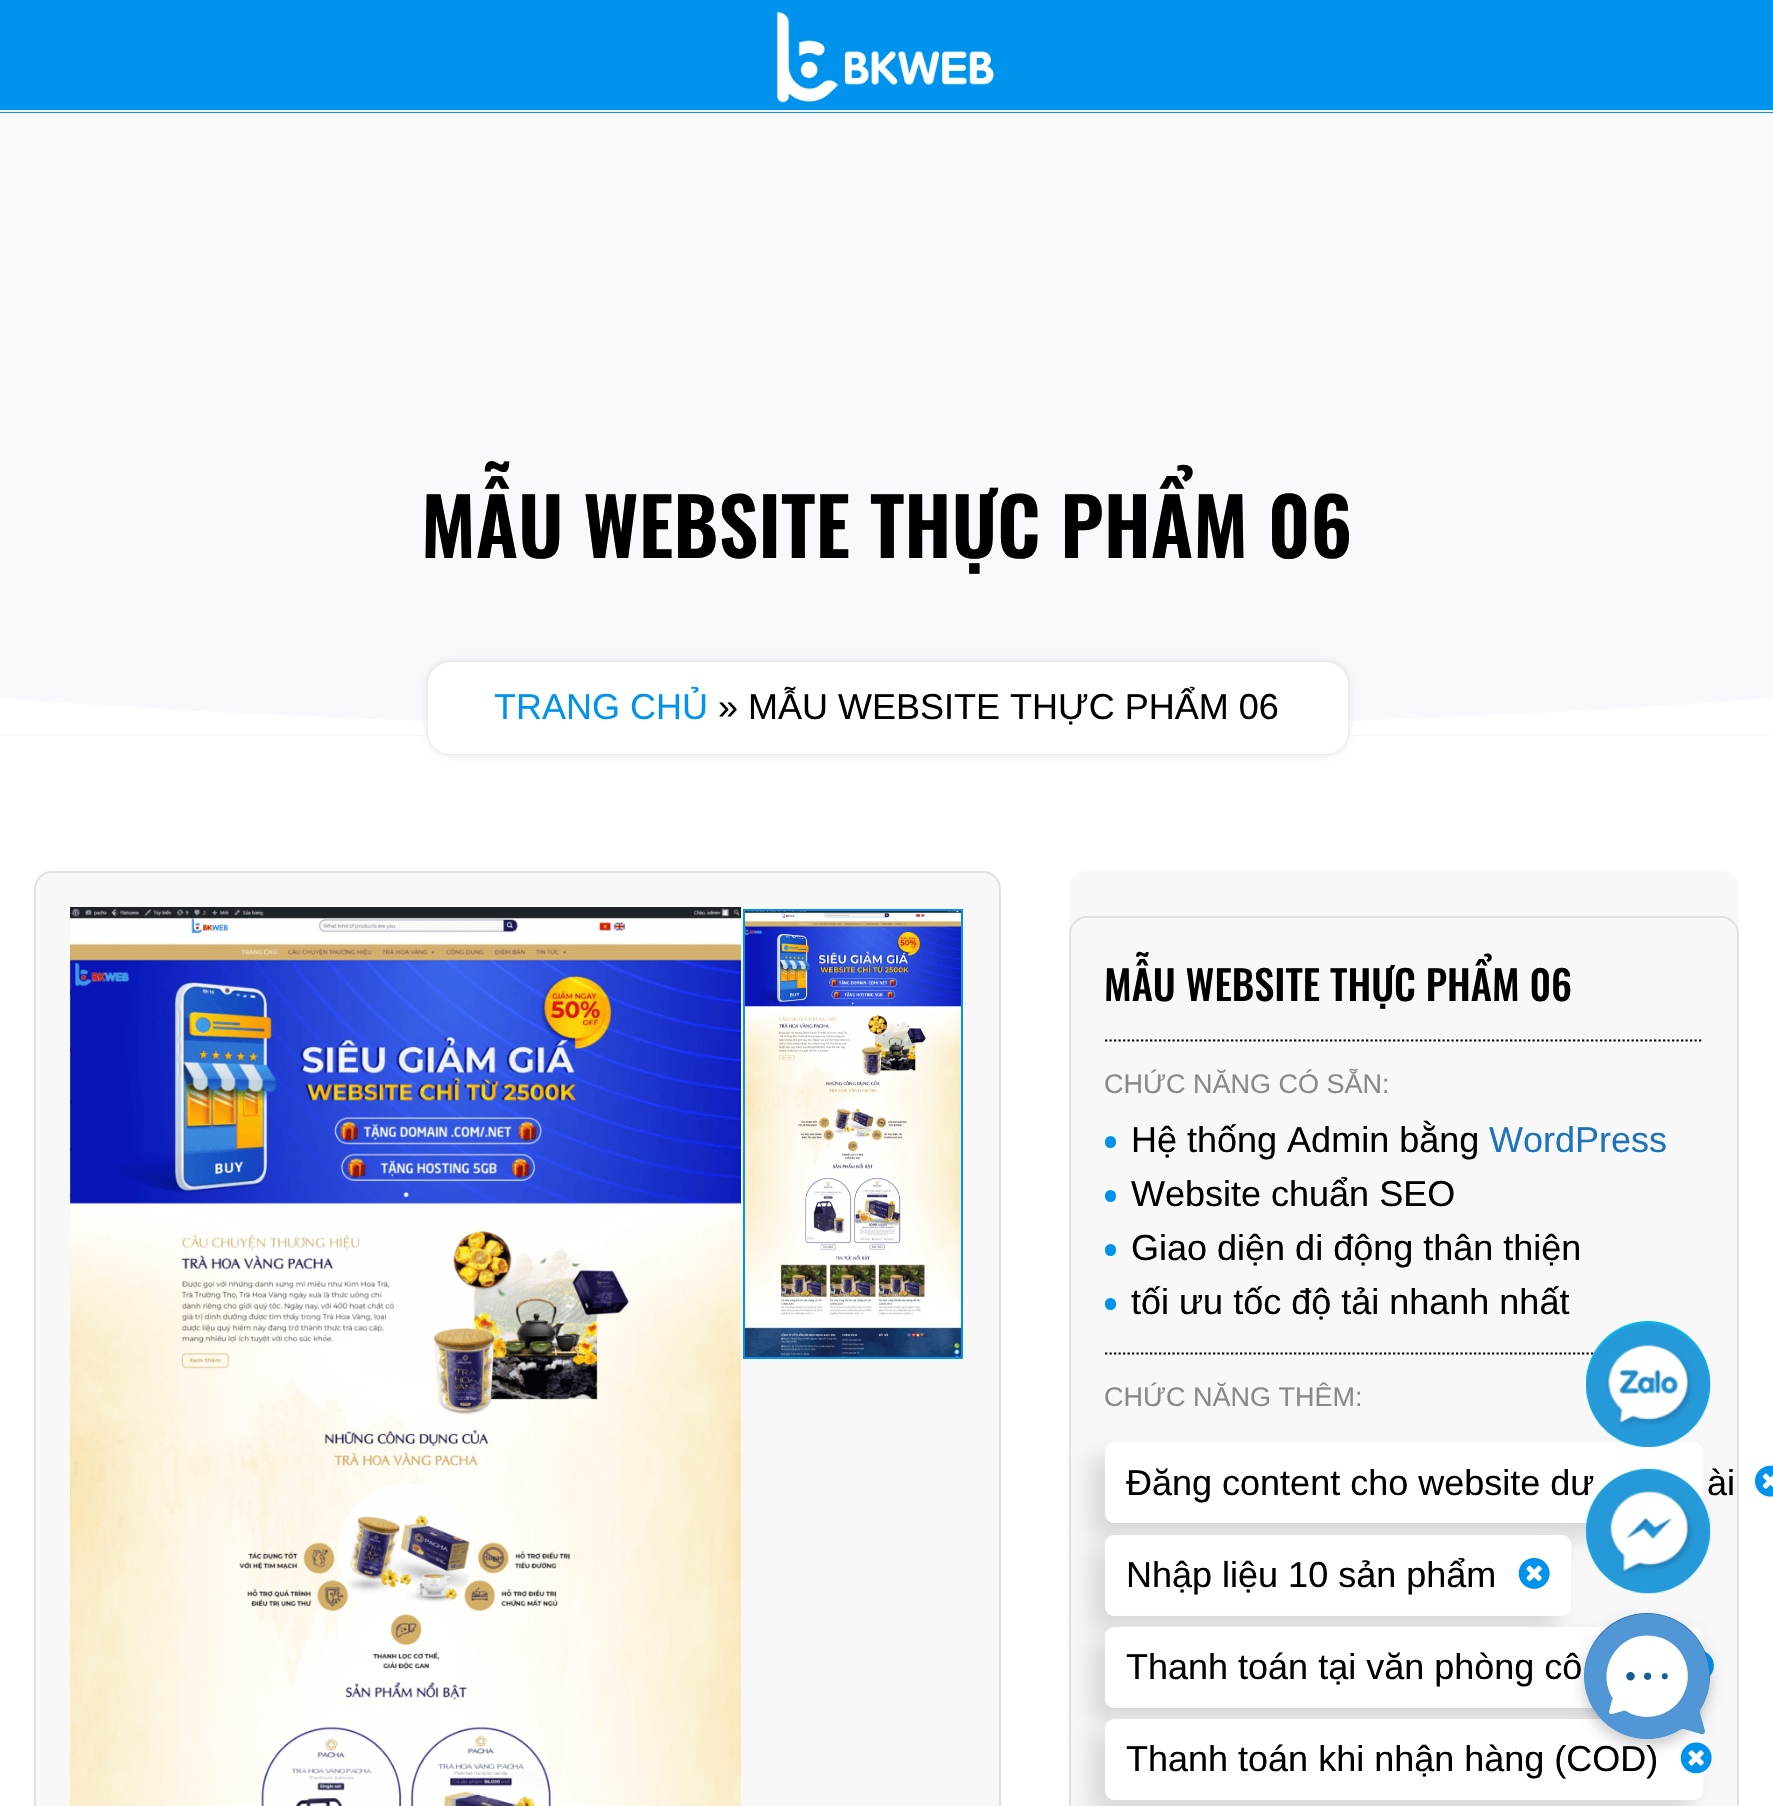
void draw(SkCanvas* canvas) {
	SkPaint fill;
	fill.setAntiAlias(true);
	auto makeFont = [&](const char* family, int weight, float size, bool italic = false) {
		SkFontStyle style(weight, SkFontStyle::kNormal_Width,
			italic ? SkFontStyle::kItalic_Slant : SkFontStyle::kUpright_Slant);
		SkFont result(fontMgr->matchFamilyStyle(family, style), size);
		result.setSubpixel(true);
		return result;
	};
	auto text = [&](const char* s, float x, float y, const SkFont& font) {
		canvas->drawString(s, x, y, font, fill);
	};
	auto box = [&](float l, float t, float r, float b) {
		canvas->drawRect(SkRect::MakeLTRB(l, t, r, b), fill);
	};
	auto roundBox = [&](float l, float t, float r, float b, float radius) {
		canvas->drawRoundRect(SkRect::MakeLTRB(l, t, r, b), radius, radius, fill);
	};
	auto picture = [&](const char* path, float l, float t, float r, float b) {
		auto image = SkImages::DeferredFromEncodedData(SkData::MakeFromFileName(path));
		canvas->drawImageRect(image, SkRect::MakeLTRB(l, t, r, b), SkSamplingOptions());
	};
	canvas->clear(0xFFFFFFFF);
	fill.setColor(0xFF0093ED);
	box(0, 0, 1773, 113);
	fill.setColor(0xFFF2F2F2);
	box(0, 110, 1773, 112);
	picture("image0.png", 776, 11, 994, 103);
	fill.setColor(0xFFF8F9FC);
	box(0, 113, 1773, 736);
	fill.setColor(0xFFFFFFFF);
	box(0, 698, 1773, 735);
	fill.setColor(0xFFF8F9FC);
	canvas->drawPath(SkPathBuilder().moveTo(0, 698).cubicTo(242, 717, 551, 728, 887, 728).cubicTo(1223, 728, 1531, 717, 1773, 698).lineTo(1773, 679).lineTo(0, 679).close().detach(), fill);
	canvas->save();
	canvas->clipPath(SkPathBuilder(SkPathFillType::kEvenOdd).moveTo(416, 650).lineTo(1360, 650).lineTo(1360, 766).lineTo(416, 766).close().moveTo(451, 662).lineTo(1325, 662).cubicTo(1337.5f, 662, 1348, 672.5f, 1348, 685).lineTo(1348, 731).cubicTo(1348, 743.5f, 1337.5f, 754, 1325, 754).lineTo(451, 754).cubicTo(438.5f, 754, 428, 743.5f, 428, 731).lineTo(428, 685).cubicTo(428, 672.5f, 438.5f, 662, 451, 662).close().detach(), true);
	fill.setColor(0x26000000);
	fill.setMaskFilter(SkMaskFilter::MakeBlur(kNormal_SkBlurStyle, 3.5f));
	canvas->drawRoundRect(SkRect::MakeLTRB(428, 662, 1348, 754), 23, 23, fill);
	fill.setMaskFilter(nullptr);
	canvas->restore();
	fill.setColor(0xFFFFFFFF);
	roundBox(428, 662, 1348, 754, 23);
	fill.setColor(0xFFF8F8F8);
	canvas->drawRoundRect(SkRect::MakeLTRB(35, 872, 1000, 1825), 17, 17, fill);
	fill.setStyle(SkPaint::kStroke_Style);
	fill.setStrokeWidth(2);
	fill.setColor(0xFFE1E1E1);
	canvas->drawRoundRect(SkRect::MakeLTRB(35, 872, 1000, 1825), 17, 17, fill);
	picture("image1.png", 70, 907, 741, 1806);
	picture("image2.png", 745, 911, 961, 1357);
	fill.setColor(0xFF0093ED);
	canvas->drawRect(SkRect::MakeLTRB(744, 910, 962, 1358), fill);
	fill.setStyle(SkPaint::kFill_Style);
	fill.setColor(0xFFF8F8F8);
	roundBox(1069, 871, 1739, 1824, 18);
	fill.setStyle(SkPaint::kStroke_Style);
	fill.setColor(0xFFE1E1E1);
	canvas->drawRoundRect(SkRect::MakeLTRB(1070, 917, 1738, 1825), 17, 17, fill);
	fill.setStrokeWidth(2.2f);
	fill.setColor(0xFF000000);
	fill.setPathEffect(SkDashPathEffect::Make({{2.25f, 2.25f}}, 0));
	canvas->drawPath(SkPathBuilder().moveTo(1105, 1040.5f).lineTo(1703, 1040.5f).detach(), fill);
	fill.setPathEffect(nullptr);
	fill.setStyle(SkPaint::kFill_Style);
	fill.setColor(0xFF0093ED);
	roundBox(1105, 1136, 1116, 1148, 5.5f);
	roundBox(1105, 1190, 1116, 1202, 5.5f);
	roundBox(1105, 1244, 1116, 1256, 5.5f);
	roundBox(1105, 1298, 1116, 1310, 5.5f);
	fill.setStyle(SkPaint::kStroke_Style);
	fill.setColor(0xFF000000);
	fill.setPathEffect(SkDashPathEffect::Make({{2.25f, 2.25f}}, 0));
	canvas->drawPath(SkPathBuilder().moveTo(1105, 1353.5f).lineTo(1703, 1353.5f).detach(), fill);
	fill.setPathEffect(nullptr);
	fill.setStyle(SkPaint::kFill_Style);
	fill.setColor(0x21000000);
	fill.setMaskFilter(SkMaskFilter::MakeBlur(kNormal_SkBlurStyle, 11));
	canvas->drawRoundRect(SkRect::MakeLTRB(1091, 1456, 1690, 1537), 9, 9, fill);
	fill.setMaskFilter(nullptr);
	fill.setColor(0xFFFFFFFF);
	roundBox(1105, 1442, 1703, 1523, 9);
	picture("image3.png", 1755, 1465, 1773, 1497);
	fill.setColor(0x21000000);
	fill.setMaskFilter(SkMaskFilter::MakeBlur(kNormal_SkBlurStyle, 11));
	canvas->drawRoundRect(SkRect::MakeLTRB(1091, 1548, 1557, 1629), 9, 9, fill);
	fill.setMaskFilter(nullptr);
	fill.setColor(0xFFFFFFFF);
	roundBox(1105, 1535, 1571, 1616, 9);
	picture("image4.png", 1518, 1558, 1550, 1589);
	fill.setColor(0x21000000);
	fill.setMaskFilter(SkMaskFilter::MakeBlur(kNormal_SkBlurStyle, 11));
	canvas->drawRoundRect(SkRect::MakeLTRB(1091, 1640, 1690, 1721), 9, 9, fill);
	fill.setMaskFilter(nullptr);
	fill.setColor(0xFFFFFFFF);
	roundBox(1105, 1627, 1703, 1708, 9);
	picture("image5.png", 1704, 1651, 1714, 1677);
	fill.setColor(0x21000000);
	fill.setMaskFilter(SkMaskFilter::MakeBlur(kNormal_SkBlurStyle, 11));
	canvas->drawRoundRect(SkRect::MakeLTRB(1091, 1733, 1690, 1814), 9, 9, fill);
	fill.setMaskFilter(nullptr);
	fill.setColor(0xFFFFFFFF);
	roundBox(1105, 1719, 1703, 1800, 9);
	picture("image6.png", 1680, 1742, 1712, 1774);
	fill.setColor(0xFF00BFF3);
	roundBox(1586, 1321, 1710, 1447, 62);
	picture("image7.png", 1586, 1322, 1711, 1447);
	fill.setColor(0x33000000);
	fill.setMaskFilter(SkMaskFilter::MakeBlur(kNormal_SkBlurStyle, 7));
	canvas->drawRoundRect(SkRect::MakeLTRB(1584, 1620, 1710, 1746), 63, 63, fill);
	fill.setMaskFilter(nullptr);
	{
		const SkColor colors[] = {0xFF50A4E5, 0xFF1E5799};
		const float stops[] = {0, 1};
		const SkPoint ends[] = {{1584, 1739}, {1710, 1613}};
		fill.setShader(SkGradientShader::MakeLinear(ends, colors, stops, 2, SkTileMode::kClamp));
		fill.setAlpha(255);
	}
	canvas->drawCircle(1647, 1676, 63, fill);
	fill.setShader(nullptr);
	fill.setColor(0xFF5197D6);
	canvas->drawPath(SkPathBuilder().moveTo(1691, 1632).cubicTo(1666, 1607, 1626, 1608, 1602, 1634).cubicTo(1579, 1658, 1580, 1696, 1603, 1720).cubicTo(1623, 1741, 1655, 1744, 1679, 1730).cubicTo(1680, 1729, 1682, 1729, 1684, 1729).lineTo(1701, 1734).cubicTo(1703, 1735, 1705, 1733, 1705, 1731).lineTo(1700, 1713).cubicTo(1700, 1711, 1700, 1710, 1701, 1708).cubicTo(1715, 1684, 1712, 1653, 1691, 1632).close().detach(), fill);
	fill.setColor(0xFFFFFFFF);
	canvas->drawPath(SkPathBuilder().moveTo(1676, 1705).cubicTo(1692, 1689, 1692, 1662, 1675, 1646).cubicTo(1659, 1632, 1634, 1632, 1619, 1647).cubicTo(1605, 1661, 1603, 1681, 1612, 1697).cubicTo(1613, 1698, 1613, 1699, 1612, 1700).lineTo(1609, 1712).cubicTo(1609, 1713, 1610, 1714, 1612, 1714).lineTo(1623, 1711).cubicTo(1624, 1710, 1625, 1711, 1626, 1711).cubicTo(1642, 1721, 1662, 1718, 1676, 1705).close().detach(), fill);
	picture("image9.png", 1626, 1672, 1668, 1681);
	auto font1 = makeFont("Oswald", 600, 78.75f);
	fill.setColor(0xFF000000);
	text("MẪU WEBSITE THỰC PHẨM 06", 421, 558, font1);
	auto font2 = makeFont("Liberation Sans", 400, 36);
	fill.setColor(0xFF0093ED);
	text("TRANG CHỦ", 494, 719, font2);
	fill.setColor(0xFF000000);
	text("» MẪU WEBSITE THỰC PHẨM 06", 718, 719, font2);
	auto font3 = makeFont("Oswald", 500, 40.5f);
	text("MẪU WEBSITE THỰC PHẨM 06", 1104, 1001, font3);
	auto font4 = makeFont("Liberation Sans", 400, 27);
	fill.setColor(0xFF898989);
	text("CHỨC NĂNG CÓ SẴN:", 1104, 1093, font4);
	fill.setColor(0xFF000000);
	text("Hệ thống Admin bằng", 1131, 1152, font2);
	fill.setColor(0xFF1E73BE);
	text("WordPress", 1489, 1152, font2);
	fill.setColor(0xFF000000);
	text("Website chuẩn SEO", 1131, 1206, font2);
	text("Giao diện di động thân thiện", 1131, 1260, font2);
	text("tối ưu tốc độ tải nhanh nhất", 1131, 1314, font2);
	fill.setColor(0xFF898989);
	text("CHỨC NĂNG THÊM:", 1104, 1406, font4);
	fill.setColor(0xFF000000);
	text("Đăng content cho website dư", 1126, 1495, font2);
	text("ài", 1707, 1495, font2);
	text("Nhập liệu 10 sản phẩm", 1126, 1587, font2);
	text("Thanh toán tại văn phòng cô", 1126, 1679, font2);
	text("Thanh toán khi nhận hàng (COD)", 1126, 1771, font2);
	fill.setColor(0xFF00BFF3);
	canvas->drawCircle(1648, 1531, 62, fill);
	picture("image8.png", 1586, 1468, 1711, 1594);
}
